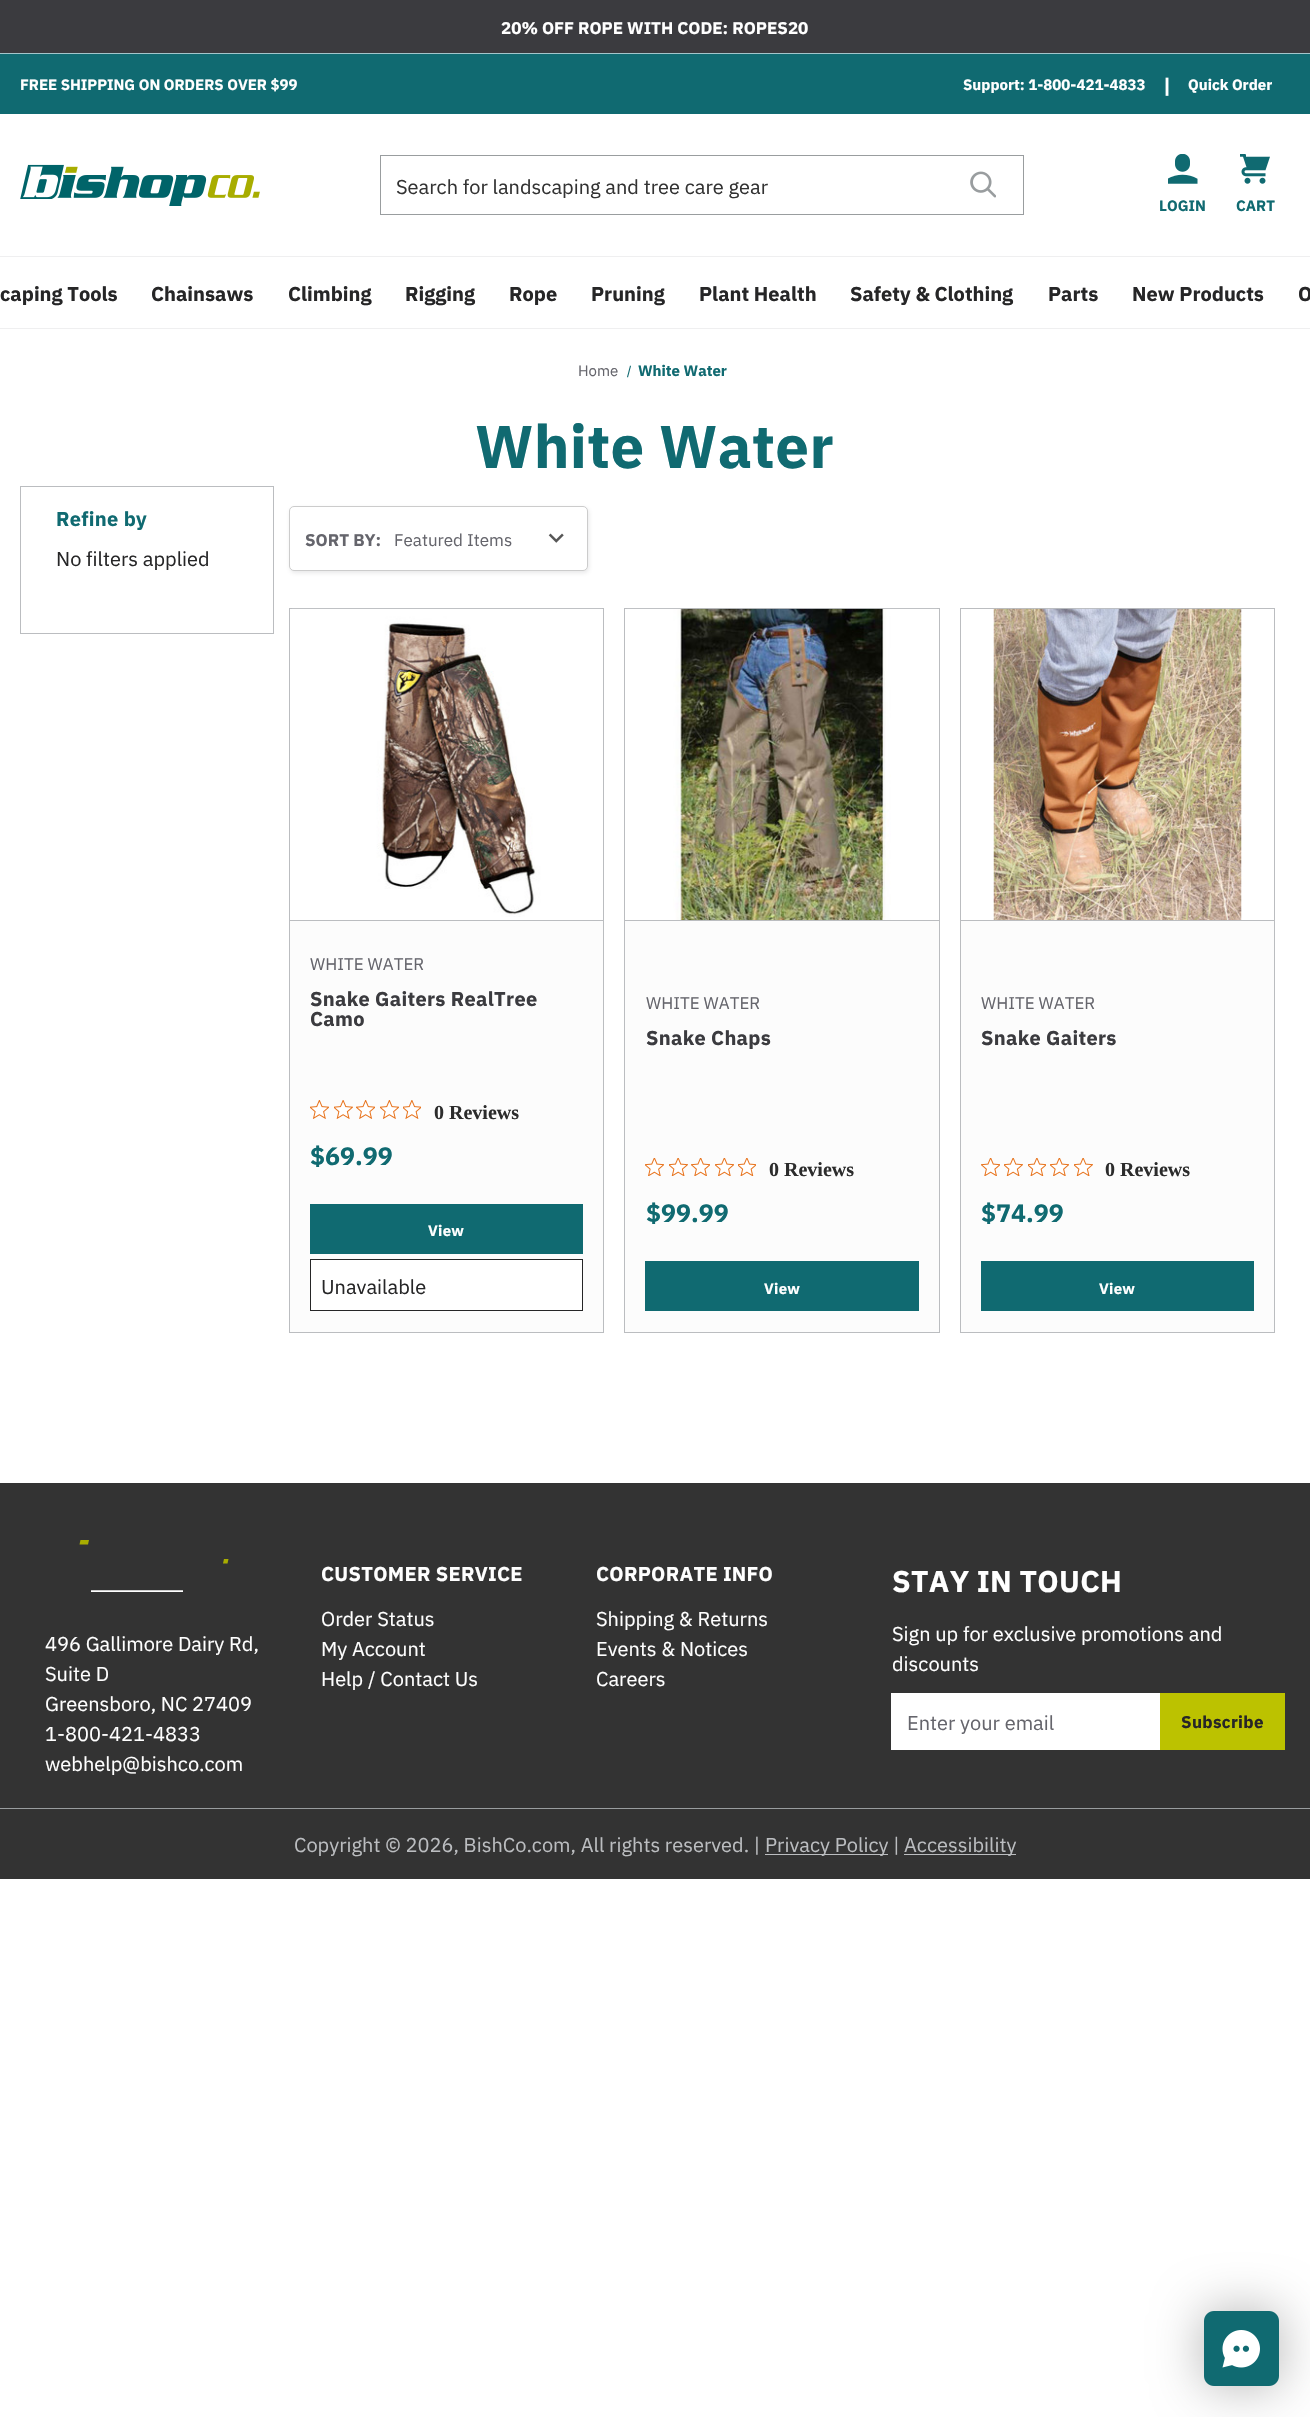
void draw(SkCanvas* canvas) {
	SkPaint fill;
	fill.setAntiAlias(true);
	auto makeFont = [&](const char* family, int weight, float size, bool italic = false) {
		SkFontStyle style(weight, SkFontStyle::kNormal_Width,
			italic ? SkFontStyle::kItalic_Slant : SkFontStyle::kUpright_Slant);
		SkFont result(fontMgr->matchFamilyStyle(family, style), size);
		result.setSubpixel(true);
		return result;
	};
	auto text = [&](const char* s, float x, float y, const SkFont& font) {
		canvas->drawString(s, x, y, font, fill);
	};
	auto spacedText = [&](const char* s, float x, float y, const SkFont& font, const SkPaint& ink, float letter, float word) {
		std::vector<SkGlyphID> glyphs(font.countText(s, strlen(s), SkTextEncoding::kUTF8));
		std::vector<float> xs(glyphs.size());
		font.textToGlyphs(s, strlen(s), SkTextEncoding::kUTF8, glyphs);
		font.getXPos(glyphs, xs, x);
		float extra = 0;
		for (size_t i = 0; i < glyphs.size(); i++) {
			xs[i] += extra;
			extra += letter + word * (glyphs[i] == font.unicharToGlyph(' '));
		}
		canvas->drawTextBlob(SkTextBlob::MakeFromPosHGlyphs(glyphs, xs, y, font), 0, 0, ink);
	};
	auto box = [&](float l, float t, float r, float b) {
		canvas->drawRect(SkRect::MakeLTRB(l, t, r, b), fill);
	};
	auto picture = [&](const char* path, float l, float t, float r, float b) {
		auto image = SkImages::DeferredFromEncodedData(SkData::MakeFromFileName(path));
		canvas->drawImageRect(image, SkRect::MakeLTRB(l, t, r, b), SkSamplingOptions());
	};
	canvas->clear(0xFFFFFFFF);
	fill.setColor(0xFF3B3B3F);
	box(0, 0, 1310, 53);
	fill.setColor(0xFFA4C6CB);
	box(0, 53, 1310, 54);
	fill.setColor(0xFF106A71);
	box(0, 54, 1310, 114);
	fill.setColor(0xFFEFEFF0);
	box(0, 328, 1310, 329);
	picture("image0.png", 20, 164, 260, 206);
	fill.setColor(0xFF999D9F);
	box(380, 155, 1024, 156);
	box(380, 214, 943, 215);
	box(380, 155, 381, 215);
	picture("image1.png", 970, 171, 996, 198);
	box(1023, 155, 1024, 215);
	box(943, 214, 1024, 215);
	picture("image2.png", 1168, 154, 1198, 184);
	picture("image3.png", 1240, 154, 1270, 184);
	fill.setColor(0xFFEFEFF0);
	box(0, 256, 1310, 257);
	fill.setColor(0xFF106A71);
	canvas->drawPath(SkPathBuilder().moveTo(630, 365.5f).lineTo(631, 366).lineTo(628, 377.5f).lineTo(627, 377).close().detach(), fill);
	fill.setStyle(SkPaint::kStroke_Style);
	fill.setStrokeWidth(1);
	fill.setColor(0xFFBBBDC0);
	canvas->drawRect(SkRect::MakeLTRB(20.5f, 486.5f, 273.5f, 633.5f), fill);
	fill.setStyle(SkPaint::kFill_Style);
	fill.setColor(0x2665656C);
	fill.setMaskFilter(SkMaskFilter::MakeBlur(kNormal_SkBlurStyle, 2));
	canvas->drawRoundRect(SkRect::MakeLTRB(290, 508, 589, 573), 5, 5, fill);
	fill.setMaskFilter(nullptr);
	fill.setColor(0xFFFFFFFF);
	canvas->drawRoundRect(SkRect::MakeLTRB(289.5f, 506.5f, 587.5f, 570.5f), 4.5f, 4.5f, fill);
	fill.setStyle(SkPaint::kStroke_Style);
	fill.setColor(0xFFCCCCCC);
	canvas->drawRoundRect(SkRect::MakeLTRB(289.5f, 506.5f, 587.5f, 570.5f), 4.5f, 4.5f, fill);
	picture("image4.png", 548, 533, 564, 543);
	fill.setStyle(SkPaint::kFill_Style);
	fill.setColor(0xFFFCFCFC);
	box(290, 1331, 603, 1332);
	fill.setStyle(SkPaint::kStroke_Style);
	fill.setColor(0xFFBBBDC0);
	canvas->drawRect(SkRect::MakeLTRB(289.5f, 608.5f, 603.5f, 1332.5f), fill);
	fill.setStyle(SkPaint::kFill_Style);
	fill.setColor(0xFFFCFCFC);
	box(290, 921, 603, 1331);
	fill.setColor(0xFFBBBDC0);
	box(290, 920, 603, 921);
	picture("image5.png", 292, 608, 602, 917);
	picture("image6.png", 310, 1100, 329, 1119);
	picture("image7.png", 334, 1100, 353, 1119);
	picture("image8.png", 356, 1100, 375, 1119);
	picture("image6.png", 380, 1100, 399, 1119);
	picture("image9.png", 403, 1100, 421, 1119);
	fill.setColor(0xFF106A71);
	box(310, 1204, 583, 1254);
	fill.setColor(0xFFFFFFFF);
	canvas->drawRect(SkRect::MakeLTRB(310.5f, 1259.5f, 582.5f, 1310.5f), fill);
	fill.setStyle(SkPaint::kStroke_Style);
	fill.setColor(0xFF262627);
	canvas->drawRect(SkRect::MakeLTRB(310.5f, 1259.5f, 582.5f, 1310.5f), fill);
	fill.setStyle(SkPaint::kFill_Style);
	fill.setColor(0xFFFCFCFC);
	box(625, 1331, 939, 1332);
	fill.setStyle(SkPaint::kStroke_Style);
	fill.setColor(0xFFBBBDC0);
	canvas->drawRect(SkRect::MakeLTRB(624.5f, 608.5f, 939.5f, 1332.5f), fill);
	fill.setStyle(SkPaint::kFill_Style);
	fill.setColor(0xFFFCFCFC);
	box(625, 921, 939, 1331);
	fill.setColor(0xFFBBBDC0);
	box(625, 920, 939, 921);
	picture("image10.png", 627, 608, 937, 920);
	picture("image11.png", 645, 1158, 664, 1176);
	picture("image12.png", 669, 1158, 688, 1176);
	picture("image13.png", 691, 1158, 710, 1176);
	picture("image11.png", 715, 1158, 734, 1176);
	picture("image14.png", 738, 1158, 756, 1176);
	fill.setColor(0xFF106A71);
	box(645, 1261, 919, 1311);
	fill.setColor(0xFFFCFCFC);
	box(961, 1331, 1274, 1332);
	fill.setStyle(SkPaint::kStroke_Style);
	fill.setColor(0xFFBBBDC0);
	canvas->drawRect(SkRect::MakeLTRB(960.5f, 608.5f, 1274.5f, 1332.5f), fill);
	fill.setStyle(SkPaint::kFill_Style);
	fill.setColor(0xFFFCFCFC);
	box(961, 921, 1274, 1331);
	fill.setColor(0xFFBBBDC0);
	box(961, 920, 1274, 921);
	picture("image15.png", 993, 608, 1242, 920);
	picture("image13.png", 981, 1158, 1000, 1176);
	picture("image12.png", 1004, 1158, 1023, 1176);
	picture("image14.png", 1028, 1158, 1046, 1176);
	picture("image11.png", 1050, 1158, 1069, 1176);
	picture("image12.png", 1074, 1158, 1093, 1176);
	fill.setColor(0xFF106A71);
	box(981, 1261, 1254, 1311);
	fill.setColor(0xFF333333);
	box(0, 1483, 1310, 1808);
	fill.setColor(0xFFA8AD00);
	canvas->drawPath(SkPathBuilder().moveTo(224, 1559).lineTo(223, 1563.5f).lineTo(227.5f, 1563.5f).lineTo(228.5f, 1559).close().detach(), fill);
	canvas->drawPath(SkPathBuilder().moveTo(80.5f, 1540).lineTo(79.5f, 1544.5f).lineTo(88, 1544.5f).lineTo(89, 1540).lineTo(81.5f, 1540).detach(), fill);
	fill.setColor(0xFFCCCCCC);
	box(91, 1590, 183, 1591);
	fill.setColor(0xFFFFFFFF);
	box(91, 1591, 183, 1592);
	box(891, 1693, 1160, 1750);
	fill.setColor(0xFFBCC200);
	box(1160, 1693, 1285, 1750);
	fill.setColor(0xFF333333);
	box(0, 1809, 1310, 1879);
	fill.setColor(0xFF999D9F);
	box(0, 1808, 1310, 1809);
	fill.setColor(0xFFBBBDC0);
	box(765, 1854, 888, 1855);
	box(904, 1854, 1016, 1855);
	fill.setColor(0x4D000000);
	fill.setMaskFilter(SkMaskFilter::MakeBlur(kNormal_SkBlurStyle, 25));
	canvas->drawRoundRect(SkRect::MakeLTRB(1204, 2311, 1279, 2386), 10, 10, fill);
	fill.setMaskFilter(nullptr);
	picture("image16.png", 1204, 2311, 1279, 2386);
	auto font1 = makeFont("IBM Plex Sans", 700, 17);
	fill.setColor(0xFFFFFFFF);
	text("20% OFF ROPE WITH CODE: ROPES20", 501, 34, font1);
	auto font2 = makeFont("IBM Plex Sans", 700, 15);
	text("FREE SHIPPING ON ORDERS OVER $99", 20, 90, font2);
	text("Support: 1-800-421-4833", 963, 90, font2);
	auto font3 = makeFont("IBM Plex Sans", 700, 20);
	text("|", 1163, 93, font3);
	text("Quick Order", 1188, 90, font2);
	auto font4 = makeFont("IBM Plex Sans", 400, 20);
	fill.setColor(0xFF333333);
	text("Search for landscaping and tree care gear", 396, 194, font4);
	fill.setColor(0xFF106A71);
	text("LOGIN", 1159, 211, font2);
	text("CART", 1236, 211, font2);
	fill.setColor(0xFF262627);
	text("caping Tools", 0, 301, font3);
	text("Chainsaws", 151, 301, font3);
	text("Climbing", 288, 301, font3);
	text("Rigging", 405, 301, font3);
	text("Rope", 509, 301, font3);
	text("Pruning", 591, 301, font3);
	text("Plant Health", 699, 301, font3);
	text("Safety & Clothing", 850, 301, font3);
	text("Parts", 1048, 301, font3);
	text("New Products", 1132, 301, font3);
	text("O", 1298, 301, font3);
	auto font5 = makeFont("IBM Plex Sans", 400, 15);
	fill.setColor(0xFF65656C);
	text("Home", 578, 376, font5);
	fill.setColor(0xFF106A71);
	text("White Water", 638, 376, font2);
	auto font6 = makeFont("IBM Plex Sans", 700, 60);
	spacedText("White Water", 475, 468, font6, fill, 0.3f, 0);
	spacedText("Refine by", 56, 526, font3, fill, 0.3f, 0);
	fill.setColor(0xFF262627);
	text("No filters applied", 56, 566, font4);
	fill.setColor(0xFF65656C);
	text("SORT BY:", 305, 546, font1);
	auto font7 = makeFont("IBM Plex Sans", 400, 17);
	text("Featured Items", 394, 546, font7);
	text("WHITE WATER", 310, 970, font7);
	fill.setColor(0xFF3B3B3F);
	spacedText("Snake Gaiters RealTree", 310, 1006, font3, fill, 0.3f, 0);
	spacedText("Camo", 310, 1026, font3, fill, 0.3f, 0);
	auto font8 = makeFont("Liberation Serif", 700, 20);
	fill.setColor(0xFF2C2C2C);
	text("0 Reviews", 434, 1119, font8);
	auto font9 = makeFont("IBM Plex Sans", 700, 25);
	fill.setColor(0xFF106A71);
	text("$69.99", 310, 1165, font9);
	fill.setColor(0xFFFFFFFF);
	spacedText("View", 428, 1236, font2, fill, 0.3f, 0);
	fill.setColor(0xFF262627);
	text("Unavailable", 321, 1294, font4);
	fill.setColor(0xFF65656C);
	text("WHITE WATER", 646, 1009, font7);
	fill.setColor(0xFF3B3B3F);
	spacedText("Snake Chaps", 646, 1045, font3, fill, 0.3f, 0);
	fill.setColor(0xFF2C2C2C);
	text("0 Reviews", 769, 1176, font8);
	fill.setColor(0xFF106A71);
	text("$99.99", 646, 1222, font9);
	fill.setColor(0xFFFFFFFF);
	spacedText("View", 764, 1294, font2, fill, 0.3f, 0);
	fill.setColor(0xFF65656C);
	text("WHITE WATER", 981, 1009, font7);
	fill.setColor(0xFF3B3B3F);
	spacedText("Snake Gaiters", 981, 1045, font3, fill, 0.3f, 0);
	fill.setColor(0xFF2C2C2C);
	text("0 Reviews", 1105, 1176, font8);
	fill.setColor(0xFF106A71);
	text("$74.99", 981, 1222, font9);
	fill.setColor(0xFFFFFFFF);
	spacedText("View", 1099, 1294, font2, fill, 0.3f, 0);
	text("496 Gallimore Dairy Rd,", 45, 1651, font4);
	text("Suite D", 45, 1681, font4);
	text("Greensboro, NC 27409", 45, 1711, font4);
	text("1-800-421-4833", 45, 1741, font4);
	text("webhelp@bishco.com", 45, 1771, font4);
	spacedText("CUSTOMER SERVICE", 321, 1581, font3, fill, 0.3f, 0);
	text("Order Status", 321, 1626, font4);
	text("My Account", 321, 1656, font4);
	text("Help / Contact Us", 321, 1686, font4);
	spacedText("CORPORATE INFO", 596, 1581, font3, fill, 0.3f, 0);
	text("Shipping & Returns", 596, 1626, font4);
	text("Events & Notices", 596, 1656, font4);
	text("Careers", 596, 1686, font4);
	auto font10 = makeFont("IBM Plex Sans", 700, 30);
	spacedText("STAY IN TOUCH", 892, 1592, font10, fill, 0.3f, 0);
	text("Sign up for exclusive promotions and", 892, 1641, font4);
	text("discounts", 892, 1671, font4);
	fill.setColor(0xFF65656C);
	text("Enter your email", 907, 1730, font4);
	fill.setColor(0xFF262627);
	spacedText("Subscribe", 1181, 1728, font1, fill, 0.3f, 0);
	fill.setColor(0xFFBBBDC0);
	text("Copyright © 2026, BishCo.com, All rights reserved. |", 294, 1852, font4);
	text("Privacy Policy |", 765, 1852, font4);
	text("Accessibility", 904, 1852, font4);
}
